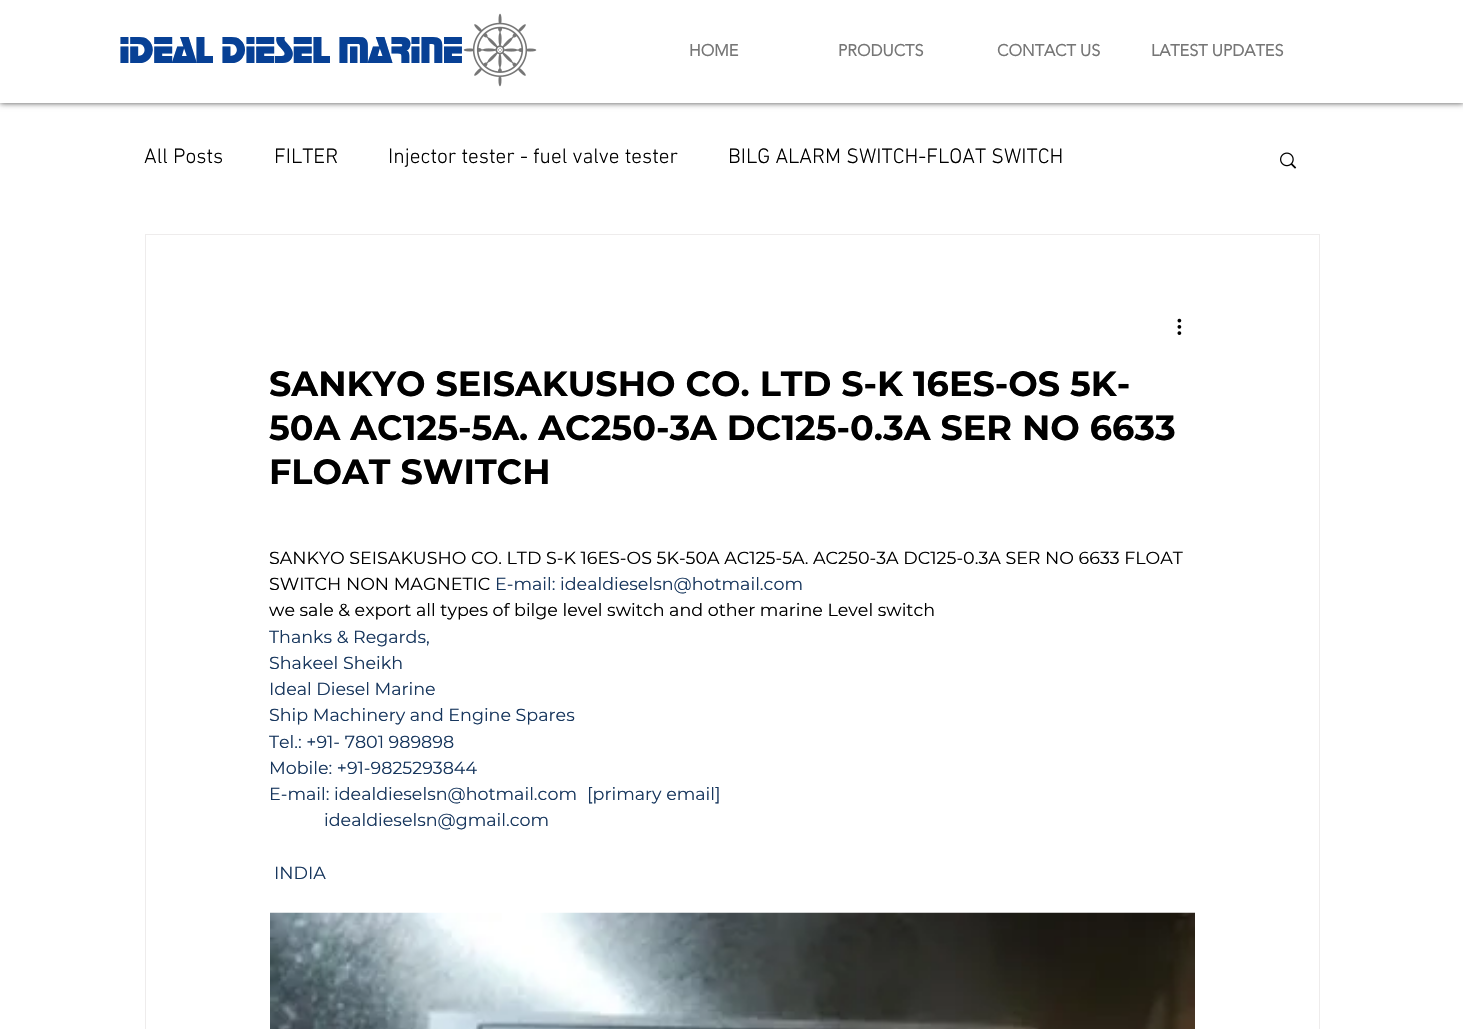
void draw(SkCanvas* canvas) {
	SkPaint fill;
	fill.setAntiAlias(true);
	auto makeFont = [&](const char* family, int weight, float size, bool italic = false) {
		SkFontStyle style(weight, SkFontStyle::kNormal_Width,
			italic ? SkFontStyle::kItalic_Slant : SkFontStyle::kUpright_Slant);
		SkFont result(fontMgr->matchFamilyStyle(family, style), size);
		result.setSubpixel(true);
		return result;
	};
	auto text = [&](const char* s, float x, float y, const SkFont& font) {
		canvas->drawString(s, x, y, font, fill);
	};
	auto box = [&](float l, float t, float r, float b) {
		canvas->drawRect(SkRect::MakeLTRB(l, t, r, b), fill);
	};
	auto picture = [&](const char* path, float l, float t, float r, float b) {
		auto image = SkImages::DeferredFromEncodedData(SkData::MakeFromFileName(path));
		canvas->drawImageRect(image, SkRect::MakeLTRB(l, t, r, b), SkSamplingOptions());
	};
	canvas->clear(0xFFFFFFFF);
	fill.setColor(0xB3000000);
	fill.setMaskFilter(SkMaskFilter::MakeBlur(kNormal_SkBlurStyle, 3));
	canvas->drawRect(SkRect::MakeLTRB(0, 0, 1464, 103), fill);
	fill.setMaskFilter(nullptr);
	fill.setColor(0xFFFFFFFF);
	box(0, 0, 1463, 103);
	picture("image0.png", 463, 13, 537, 87);
	picture("image1.png", 1280, 152, 1297, 169);
	fill.setStyle(SkPaint::kStroke_Style);
	fill.setStrokeWidth(1);
	fill.setColor(0xFFEEECEC);
	canvas->drawRect(SkRect::MakeLTRB(145.5f, 234.5f, 1319.5f, 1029.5f), fill);
	picture("image2.png", 1177, 318, 1182, 335);
	picture("image3.png", 270, 912, 1195, 1029);
	auto font1 = makeFont("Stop", 700, 37.5f);
	fill.setStyle(SkPaint::kFill_Style);
	fill.setColor(0xFF074095);
	text("IDEAL DIESEL MARINE", 119, 63, font1);
	auto font2 = makeFont("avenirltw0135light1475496", 700, 16.25f);
	fill.setColor(0xFF767676);
	text("HOME", 689, 56, font2);
	text("PRODUCTS", 838, 56, font2);
	text("CONTACT US", 997, 56, font2);
	text("LATEST UPDATES", 1151, 56, font2);
	auto font3 = makeFont("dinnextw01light", 300, 21.25f);
	fill.setColor(0xFF000000);
	text("All Posts", 144, 163, font3);
	text("FILTER", 274, 163, font3);
	text("Injector tester - fuel valve tester", 388, 163, font3);
	text("BILG ALARM SWITCH-FLOAT SWITCH", 728, 163, font3);
	auto font4 = makeFont("Montserrat", 700, 35);
	text("SANKYO SEISAKUSHO CO. LTD S-K 16ES-OS 5K-", 269, 396, font4);
	text("50A AC125-5A. AC250-3A DC125-0.3A SER NO 6633", 269, 440, font4);
	text("FLOAT SWITCH", 269, 484, font4);
	auto font5 = makeFont("Montserrat", 400, 17.5f);
	text("SANKYO SEISAKUSHO CO. LTD S-K 16ES-OS 5K-50A AC125-5A. AC250-3A DC125-0.3A SER NO 6633 FLOAT", 269, 564, font5);
	text("SWITCH NON MAGNETIC", 269, 590, font5);
	fill.setColor(0xFF17365D);
	text("E-mail: idealdieselsn@hotmail.com", 495, 590, font5);
	fill.setColor(0xFF000000);
	text("we sale & export all types of bilge level switch and other marine Level switch", 269, 616, font5);
	fill.setColor(0xFF17365D);
	text("Thanks & Regards,", 269, 643, font5);
	text("Shakeel Sheikh", 269, 669, font5);
	text("Ideal Diesel Marine", 269, 695, font5);
	text("Ship Machinery and Engine Spares", 269, 721, font5);
	text("Tel.: +91- 7801 989898", 269, 748, font5);
	text("Mobile: +91-9825293844", 269, 774, font5);
	text("E-mail: idealdieselsn@hotmail.com", 269, 800, font5);
	text("[primary email]", 587, 800, font5);
	text("idealdieselsn@gmail.com", 324, 826, font5);
	text("INDIA", 274, 879, font5);
}
